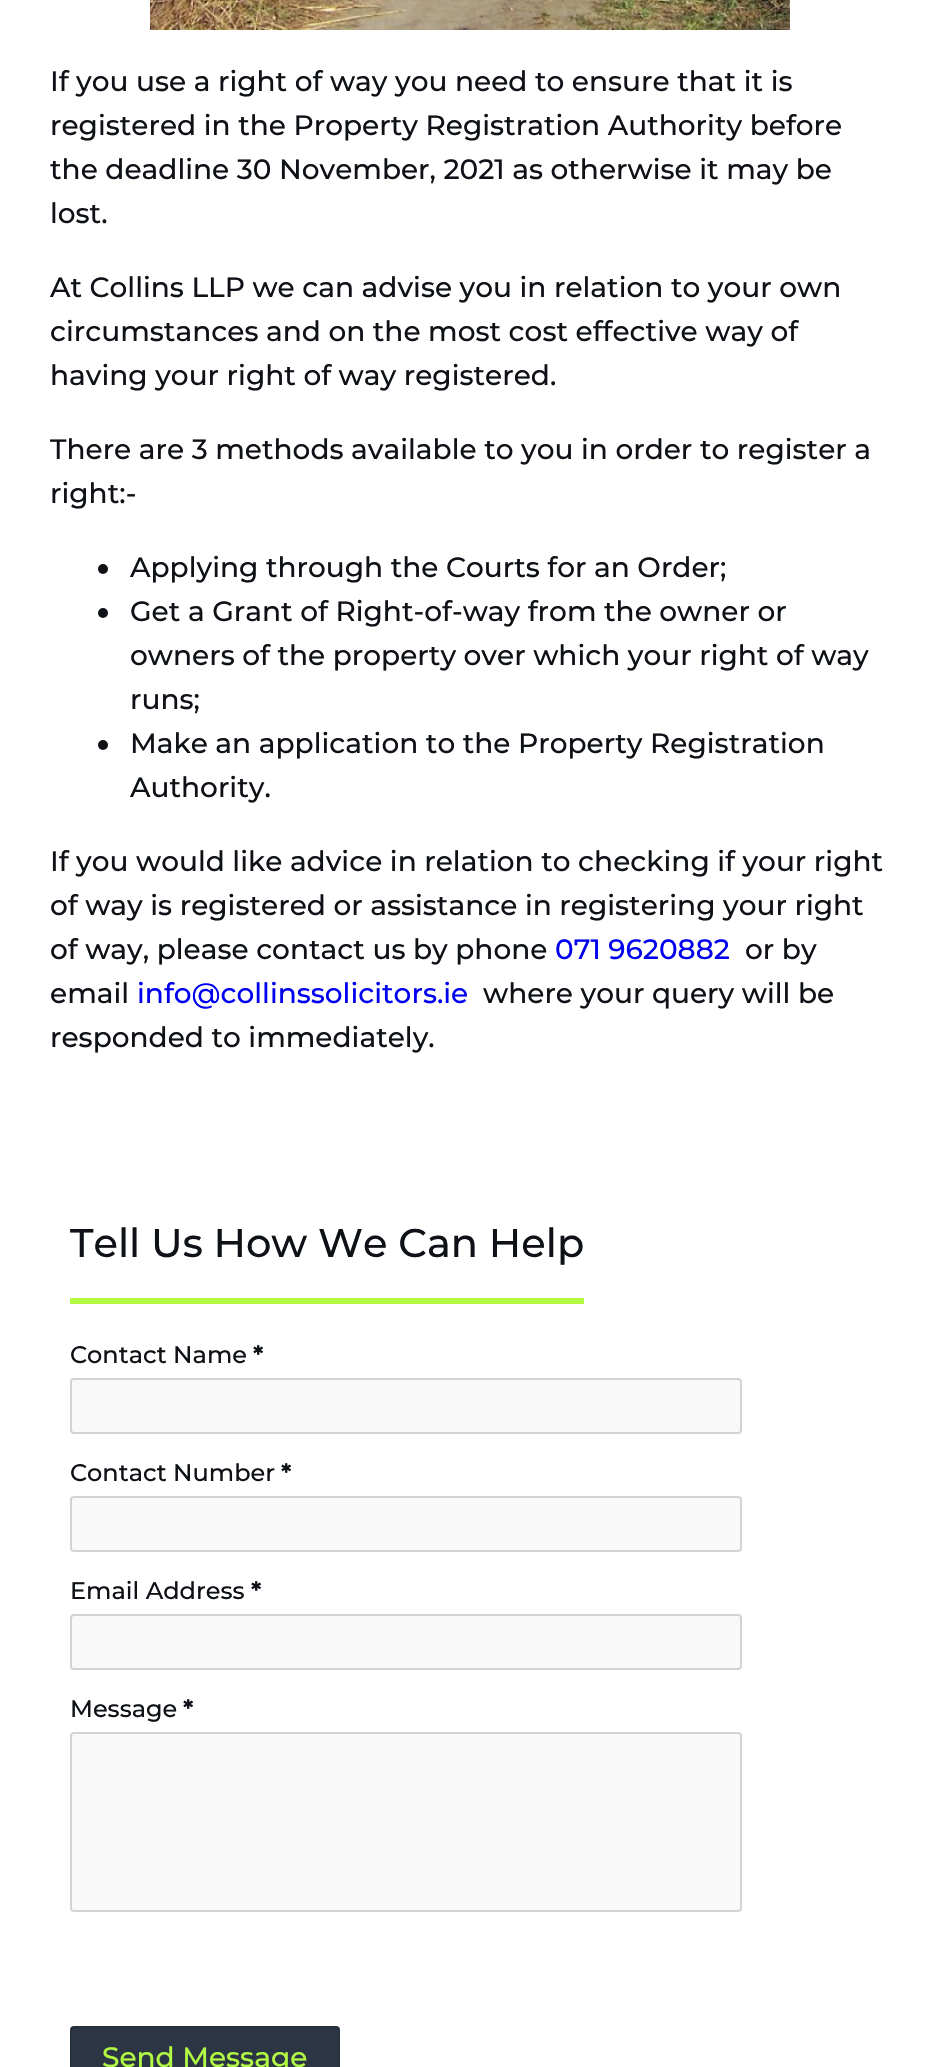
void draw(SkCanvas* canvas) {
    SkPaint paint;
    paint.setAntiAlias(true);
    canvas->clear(0xFFFFFFFF);
    canvas->drawImageRect(SkImages::DeferredFromEncodedData(SkData::MakeFromFileName("img1.png")), SkRect::MakeXYWH(150, 0, 640, 30), SkSamplingOptions());
    SkFont font1(fontMgr->matchFamilyStyle("Montserrat", SkFontStyle(500, SkFontStyle::kNormal_Width, SkFontStyle::kUpright_Slant)), 28);
    font1.setSubpixel(true);
    paint.setColor(0xFF0E1116);
    canvas->drawString("If you use a right of way you need to ensure that it is", 50, 91, font1, paint);
    canvas->drawString("registered in the Property Registration Authority before", 50, 135, font1, paint);
    canvas->drawString("the deadline 30 November, 2021 as otherwise it may be", 50, 179, font1, paint);
    canvas->drawString("lost.", 50, 223, font1, paint);
    canvas->drawString("At Collins LLP we can advise you in relation to your own", 50, 297, font1, paint);
    canvas->drawString("circumstances and on the most cost effective way of", 50, 341, font1, paint);
    canvas->drawString("having your right of way registered.", 50, 385, font1, paint);
    canvas->drawString("There are 3 methods available to you in order to register a", 50, 459, font1, paint);
    canvas->drawString("right:-", 50, 503, font1, paint);
    canvas->drawCircle(103, 569, 5, paint);
    canvas->drawString("Applying through the Courts for an Order;", 130, 577, font1, paint);
    canvas->drawCircle(103, 613, 5, paint);
    canvas->drawString("Get a Grant of Right-of-way from the owner or", 130, 621, font1, paint);
    canvas->drawString("owners of the property over which your right of way", 130, 665, font1, paint);
    canvas->drawString("runs;", 130, 709, font1, paint);
    canvas->drawCircle(103, 745, 5, paint);
    canvas->drawString("Make an application to the Property Registration", 130, 753, font1, paint);
    canvas->drawString("Authority.", 130, 797, font1, paint);
    canvas->drawString("If you would like advice in relation to checking if your right", 50, 871, font1, paint);
    canvas->drawString("of way is registered or assistance in registering your right", 50, 915, font1, paint);
    canvas->drawString("of way, please contact us by phone", 50, 959, font1, paint);
    paint.setColor(0xFF0000EE);
    canvas->drawString("071 9620882", 555, 959, font1, paint);
    paint.setColor(0xFF0E1116);
    canvas->drawString("or by", 745, 959, font1, paint);
    canvas->drawString("email", 50, 1003, font1, paint);
    paint.setColor(0xFF0000EE);
    canvas->drawString("info@collinssolicitors.ie", 137, 1003, font1, paint);
    paint.setColor(0xFF0E1116);
    canvas->drawString("where your query will be", 483, 1003, font1, paint);
    canvas->drawString("responded to immediately.", 50, 1047, font1, paint);
    paint.setColor(0xFFB2F943);
    canvas->drawRect(SkRect::MakeXYWH(70, 1298, 514, 6), paint);
    SkFont font2(fontMgr->matchFamilyStyle("Montserrat", SkFontStyle(500, SkFontStyle::kNormal_Width, SkFontStyle::kUpright_Slant)), 40);
    font2.setSubpixel(true);
    paint.setColor(0xFF0E1116);
    canvas->drawString("Tell Us How We Can Help", 70, 1257, font2, paint);
    SkFont font3(fontMgr->matchFamilyStyle("Montserrat", SkFontStyle(500, SkFontStyle::kNormal_Width, SkFontStyle::kUpright_Slant)), 24);
    font3.setSubpixel(true);
    canvas->drawString("Contact Name", 70, 1363, font3, paint);
    SkFont font4(fontMgr->matchFamilyStyle("Montserrat", SkFontStyle::Bold()), 24);
    font4.setSubpixel(true);
    canvas->drawString("*", 253, 1363, font4, paint);
    paint.setColor(0xFFF9F9F9);
    canvas->drawRoundRect(SkRect::MakeXYWH(71, 1379, 670, 54), 3, 3, paint);
    paint.setStyle(SkPaint::kStroke_Style);
    paint.setStrokeWidth(2);
    paint.setColor(0xFFD3D3D3);
    canvas->drawRoundRect(SkRect::MakeXYWH(71, 1379, 670, 54), 3, 3, paint);
    paint.setStyle(SkPaint::kFill_Style);
    paint.setColor(0xFF0E1116);
    canvas->drawString("Contact Number", 70, 1481, font3, paint);
    canvas->drawString("*", 281, 1481, font4, paint);
    paint.setColor(0xFFF9F9F9);
    canvas->drawRoundRect(SkRect::MakeXYWH(71, 1497, 670, 54), 3, 3, paint);
    paint.setStyle(SkPaint::kStroke_Style);
    paint.setColor(0xFFD3D3D3);
    canvas->drawRoundRect(SkRect::MakeXYWH(71, 1497, 670, 54), 3, 3, paint);
    paint.setStyle(SkPaint::kFill_Style);
    paint.setColor(0xFF0E1116);
    canvas->drawString("Email Address", 70, 1599, font3, paint);
    canvas->drawString("*", 251, 1599, font4, paint);
    paint.setColor(0xFFF9F9F9);
    canvas->drawRoundRect(SkRect::MakeXYWH(71, 1615, 670, 54), 3, 3, paint);
    paint.setStyle(SkPaint::kStroke_Style);
    paint.setColor(0xFFD3D3D3);
    canvas->drawRoundRect(SkRect::MakeXYWH(71, 1615, 670, 54), 3, 3, paint);
    paint.setStyle(SkPaint::kFill_Style);
    paint.setColor(0xFF0E1116);
    canvas->drawString("Message", 70, 1717, font3, paint);
    canvas->drawString("*", 183, 1717, font4, paint);
    paint.setColor(0xFFF9F9F9);
    canvas->drawRoundRect(SkRect::MakeXYWH(71, 1733, 670, 178), 3, 3, paint);
    paint.setStyle(SkPaint::kStroke_Style);
    paint.setColor(0xFFD3D3D3);
    canvas->drawRoundRect(SkRect::MakeXYWH(71, 1733, 670, 178), 3, 3, paint);
    paint.setStyle(SkPaint::kFill_Style);
    paint.setColor(0xFF2B3544);
    canvas->drawRoundRect(SkRect::MakeXYWH(70, 2026, 270, 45), 4, 4, paint);
    paint.setStyle(SkPaint::kStroke_Style);
    paint.setColor(0x1A000000);
    canvas->drawPath(SkPathBuilder().moveTo(72, 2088).lineTo(71, 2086).lineTo(71, 2030).lineTo(72, 2028).lineTo(74, 2027).lineTo(336, 2027).lineTo(338, 2028).lineTo(339, 2030).lineTo(339, 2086).lineTo(338, 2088).detach(), paint);
    paint.setStyle(SkPaint::kFill_Style);
    paint.setColor(0xFFB2F943);
    canvas->drawString("Send Message", 102, 2067, font1, paint);
}
